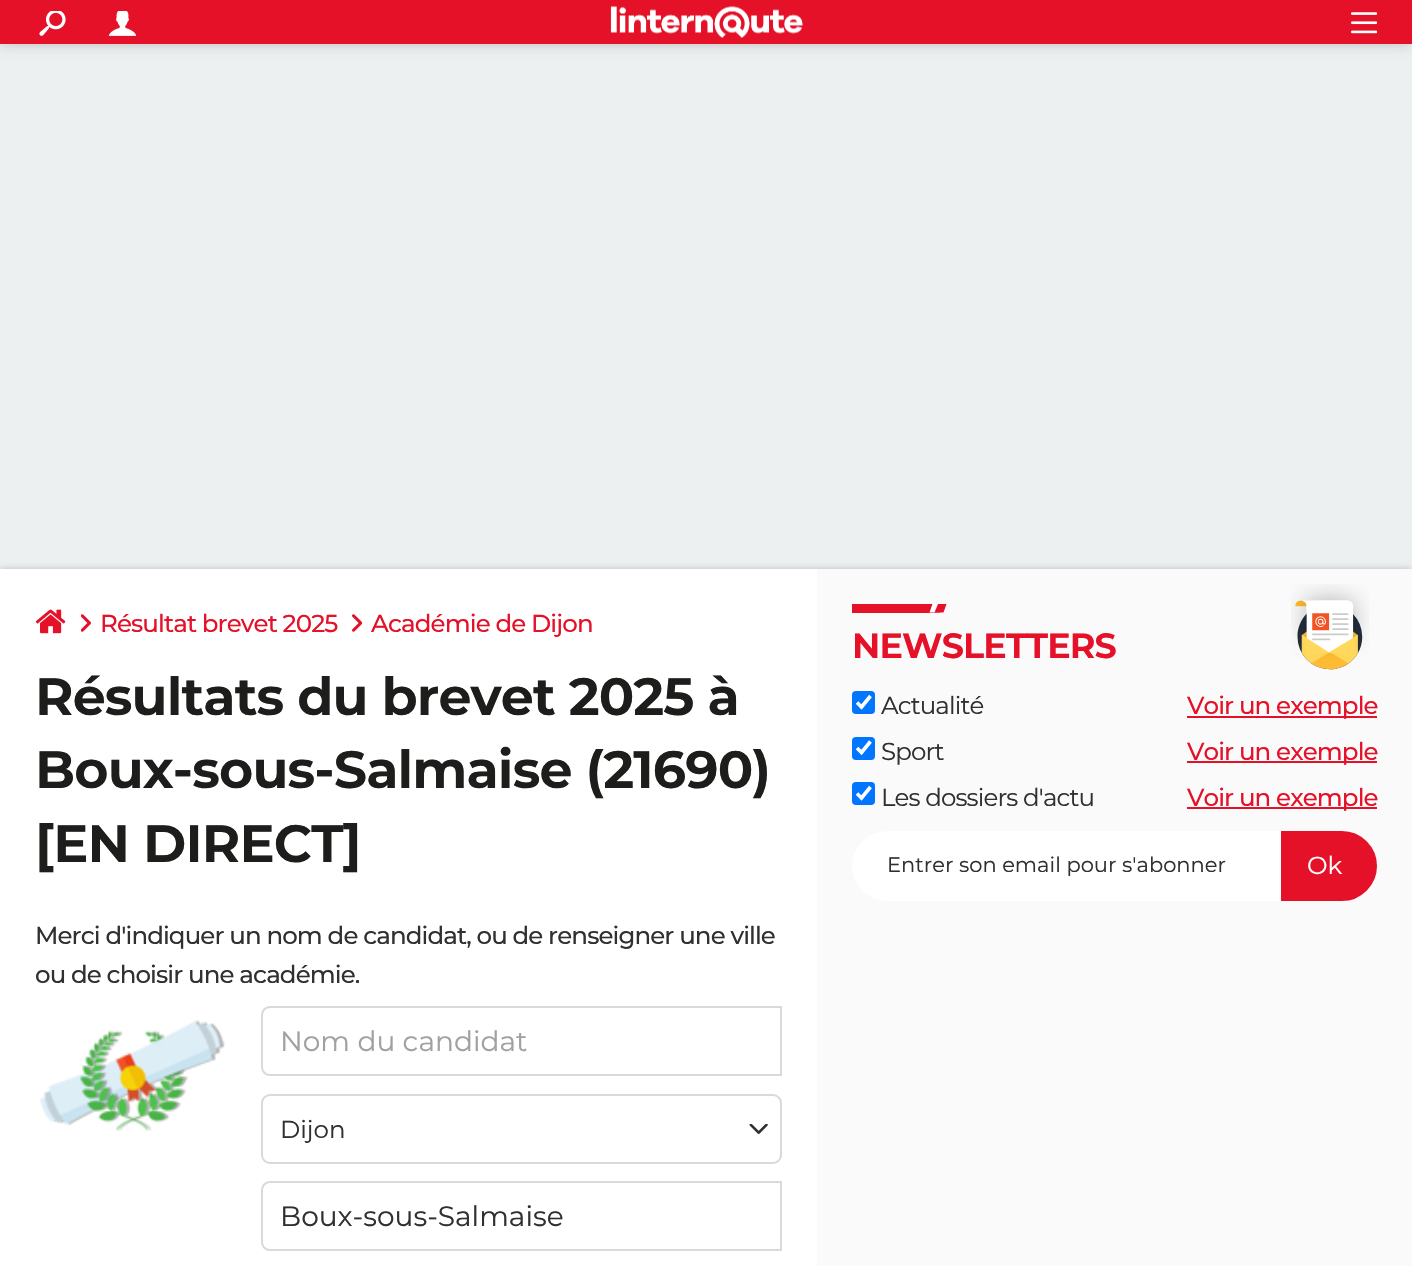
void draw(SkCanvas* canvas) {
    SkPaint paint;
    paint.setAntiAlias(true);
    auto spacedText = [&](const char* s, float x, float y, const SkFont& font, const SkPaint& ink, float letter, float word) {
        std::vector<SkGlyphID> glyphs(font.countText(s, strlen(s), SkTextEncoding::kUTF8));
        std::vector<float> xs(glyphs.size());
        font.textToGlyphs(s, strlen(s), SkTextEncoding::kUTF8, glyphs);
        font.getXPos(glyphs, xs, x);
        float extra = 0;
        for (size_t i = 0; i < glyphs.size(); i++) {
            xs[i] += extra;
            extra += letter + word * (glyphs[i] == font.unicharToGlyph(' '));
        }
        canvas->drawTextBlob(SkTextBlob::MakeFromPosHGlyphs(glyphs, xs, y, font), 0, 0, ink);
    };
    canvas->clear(0xFFEDF0F0);
    paint.setColor(0x33000000);
    paint.setMaskFilter(SkMaskFilter::MakeBlur(kNormal_SkBlurStyle, 7));
    canvas->drawRect(SkRect::MakeXYWH(0, 0, 1412, 44), paint);
    paint.setMaskFilter(nullptr);
    paint.setColor(0xFFE41129);
    canvas->drawRect(SkRect::MakeXYWH(0, 0, 1412, 44), paint);
    canvas->drawImageRect(SkImages::DeferredFromEncodedData(SkData::MakeFromFileName("img1.png")), SkRect::MakeXYWH(39, 11, 27, 25), SkSamplingOptions());
    canvas->drawImageRect(SkImages::DeferredFromEncodedData(SkData::MakeFromFileName("img2.png")), SkRect::MakeXYWH(108, 11, 29, 25), SkSamplingOptions());
    canvas->drawImageRect(SkImages::DeferredFromEncodedData(SkData::MakeFromFileName("img3.png")), SkRect::MakeXYWH(610, 6, 193, 33), SkSamplingOptions());
    canvas->drawImageRect(SkImages::DeferredFromEncodedData(SkData::MakeFromFileName("img4.png")), SkRect::MakeXYWH(1351, 12, 26, 22), SkSamplingOptions());
    paint.setColor(0x33000000);
    paint.setMaskFilter(SkMaskFilter::MakeBlur(kNormal_SkBlurStyle, 3.5f));
    canvas->drawRect(SkRect::MakeXYWH(0, 569, 1412, 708), paint);
    paint.setMaskFilter(nullptr);
    paint.setColor(0xFFFAFAFA);
    canvas->drawRect(SkRect::MakeXYWH(817, 569, 595, 697), paint);
    paint.setColor(0xFFFFFFFF);
    canvas->drawRect(SkRect::MakeXYWH(0, 569, 817, 697), paint);
    canvas->drawImageRect(SkImages::DeferredFromEncodedData(SkData::MakeFromFileName("img5.png")), SkRect::MakeXYWH(35, 609, 31, 25), SkSamplingOptions());
    canvas->drawImageRect(SkImages::DeferredFromEncodedData(SkData::MakeFromFileName("img6.png")), SkRect::MakeXYWH(81, 614, 10, 18), SkSamplingOptions());
    SkFont font1(fontMgr->matchFamilyStyle("Montserrat", SkFontStyle(500, SkFontStyle::kNormal_Width, SkFontStyle::kUpright_Slant)), 24.5f);
    font1.setSubpixel(true);
    paint.setColor(0xFFE41129);
    spacedText("Résultat brevet 2025", 100, 632, font1, paint, -0.88f, 0);
    canvas->drawImageRect(SkImages::DeferredFromEncodedData(SkData::MakeFromFileName("img7.png")), SkRect::MakeXYWH(352, 614, 10, 18), SkSamplingOptions());
    spacedText("Académie de Dijon", 371, 632, font1, paint, -0.88f, 0);
    SkFont font2(fontMgr->matchFamilyStyle("Montserrat", SkFontStyle::Bold()), 52.5f);
    font2.setSubpixel(true);
    paint.setColor(0xFF1D1D1B);
    spacedText("Résultats du brevet 2025 à", 35, 715, font2, paint, -0.88f, 0);
    spacedText("Boux-sous-Salmaise (21690)", 35, 788, font2, paint, -0.88f, 0);
    spacedText("[EN DIRECT]", 35, 862, font2, paint, -0.88f, 0);
    paint.setColor(0xFF303030);
    spacedText("Merci d'indiquer un nom de candidat, ou de renseigner une ville", 35, 944, font1, paint, -0.88f, 0);
    spacedText("ou de choisir une académie.", 35, 983, font1, paint, -0.88f, 0);
    canvas->drawImageRect(SkImages::DeferredFromEncodedData(SkData::MakeFromFileName("img8.png")), SkRect::MakeXYWH(40, 1020, 185, 111), SkSamplingOptions());
    paint.setStyle(SkPaint::kStroke_Style);
    paint.setStrokeWidth(2);
    paint.setColor(0xFFD9D9D9);
    canvas->drawPath(SkPathBuilder().moveTo(270, 1007).lineTo(781, 1007).lineTo(781, 1075).lineTo(270, 1075).cubicTo(265.5f, 1075, 262, 1071.5f, 262, 1067).lineTo(262, 1015).cubicTo(262, 1010.5f, 265.5f, 1007, 270, 1007).close().detach(), paint);
    SkFont font3(fontMgr->matchFamilyStyle("Montserrat", SkFontStyle::Normal()), 28);
    font3.setSubpixel(true);
    paint.setStyle(SkPaint::kFill_Style);
    paint.setColor(0xFFA1A1A1);
    canvas->drawString("Nom du candidat", 280, 1051, font3, paint);
    canvas->drawImageRect(SkImages::DeferredFromEncodedData(SkData::MakeFromFileName("img9.png")), SkRect::MakeXYWH(749, 1124, 19, 10), SkSamplingOptions());
    paint.setStyle(SkPaint::kStroke_Style);
    paint.setColor(0xFFD9D9D9);
    canvas->drawRoundRect(SkRect::MakeXYWH(262, 1095, 519, 68), 8, 8, paint);
    SkFont font4(fontMgr->matchFamilyStyle("Montserrat", SkFontStyle::Normal()), 24.5f);
    font4.setSubpixel(true);
    paint.setStyle(SkPaint::kFill_Style);
    paint.setColor(0xFF303030);
    canvas->drawString("Dijon", 280, 1138, font4, paint);
    paint.setStyle(SkPaint::kStroke_Style);
    paint.setColor(0xFFD9D9D9);
    canvas->drawPath(SkPathBuilder().moveTo(270, 1182).lineTo(781, 1182).lineTo(781, 1250).lineTo(270, 1250).cubicTo(265.5f, 1250, 262, 1246.5f, 262, 1242).lineTo(262, 1190).cubicTo(262, 1185.5f, 265.5f, 1182, 270, 1182).close().detach(), paint);
    paint.setStyle(SkPaint::kFill_Style);
    paint.setColor(0xFF303030);
    canvas->drawString("Boux-sous-Salmaise", 280, 1226, font3, paint);
    paint.setColor(0xFFE41129);
    canvas->drawRect(SkRect::MakeXYWH(852, 604, 88, 9), paint);
    paint.setColor(0xFFFFFFFF);
    canvas->drawPath(SkPathBuilder().moveTo(932.5f, 604).lineTo(946.5f, 604).lineTo(943.5f, 612.5f).lineTo(929.5f, 612.5f).close().detach(), paint);
    paint.setColor(0xFFE41129);
    canvas->drawPath(SkPathBuilder().moveTo(938, 604).lineTo(946.5f, 604).lineTo(943.5f, 612.5f).lineTo(934.5f, 612.5f).close().detach(), paint);
    SkFont font5(fontMgr->matchFamilyStyle("Montserrat", SkFontStyle::Bold()), 35);
    font5.setSubpixel(true);
    spacedText("NEWSLETTERS", 852, 658, font5, paint, -0.88f, 0);
    canvas->drawImageRect(SkImages::DeferredFromEncodedData(SkData::MakeFromFileName("img10.png")), SkRect::MakeXYWH(1291, 584, 78, 86), SkSamplingOptions());
    paint.setColor(0xFF0075FF);
    canvas->drawRoundRect(SkRect::MakeXYWH(852, 691, 23, 23), 4, 4, paint);
    paint.setStyle(SkPaint::kStroke_Style);
    paint.setStrokeWidth(3.6f);
    paint.setColor(0xFFFFFFFF);
    canvas->drawPath(SkPathBuilder().moveTo(857, 702.5f).lineTo(861.5f, 707).lineTo(870.5f, 696).detach(), paint);
    paint.setStyle(SkPaint::kFill_Style);
    paint.setColor(0xFF303030);
    spacedText("Actualité", 881, 714, font4, paint, -0.88f, 0);
    paint.setColor(0xFFE41129);
    canvas->drawRect(SkRect::MakeXYWH(1187, 716, 190, 2), paint);
    spacedText("Voir un exemple", 1187, 714, font1, paint, -0.88f, 0);
    paint.setColor(0xFF0075FF);
    canvas->drawRoundRect(SkRect::MakeXYWH(852, 737, 23, 23), 4, 4, paint);
    paint.setStyle(SkPaint::kStroke_Style);
    paint.setColor(0xFFFFFFFF);
    canvas->drawPath(SkPathBuilder().moveTo(857, 748).lineTo(861.5f, 752.5f).lineTo(870.5f, 741.5f).detach(), paint);
    paint.setStyle(SkPaint::kFill_Style);
    paint.setColor(0xFF303030);
    spacedText("Sport", 881, 760, font4, paint, -0.88f, 0);
    paint.setColor(0xFFE41129);
    canvas->drawRect(SkRect::MakeXYWH(1187, 761, 190, 2), paint);
    spacedText("Voir un exemple", 1187, 760, font1, paint, -0.88f, 0);
    paint.setColor(0xFF0075FF);
    canvas->drawRoundRect(SkRect::MakeXYWH(852, 782, 23, 23), 4, 4, paint);
    paint.setStyle(SkPaint::kStroke_Style);
    paint.setColor(0xFFFFFFFF);
    canvas->drawPath(SkPathBuilder().moveTo(857, 793.5f).lineTo(861.5f, 798).lineTo(870.5f, 787).detach(), paint);
    paint.setStyle(SkPaint::kFill_Style);
    paint.setColor(0xFF303030);
    spacedText("Les dossiers d'actu", 881, 806, font4, paint, -0.88f, 0);
    paint.setColor(0xFFE41129);
    canvas->drawRect(SkRect::MakeXYWH(1187, 807, 190, 2), paint);
    spacedText("Voir un exemple", 1187, 806, font1, paint, -0.88f, 0);
    paint.setColor(0xFFFFFFFF);
    canvas->drawRoundRect(SkRect::MakeXYWH(852, 831, 525, 70), 35, 35, paint);
    SkFont font6(fontMgr->matchFamilyStyle("Montserrat", SkFontStyle::Normal()), 21);
    font6.setSubpixel(true);
    paint.setColor(0xFF303030);
    canvas->drawString("Entrer son email pour s'abonner", 887, 872, font6, paint);
    paint.setColor(0xFFE41129);
    canvas->drawPath(SkPathBuilder().moveTo(1283, 833).lineTo(1342, 833).cubicTo(1360, 833, 1375, 848, 1375, 866).cubicTo(1375, 884, 1360, 899, 1342, 899).lineTo(1283, 899).close().detach(), paint);
    paint.setStyle(SkPaint::kStroke_Style);
    paint.setStrokeWidth(4);
    canvas->drawPath(SkPathBuilder().moveTo(1283, 833).lineTo(1342, 833).cubicTo(1360, 833, 1375, 848, 1375, 866).cubicTo(1375, 884, 1360, 899, 1342, 899).lineTo(1283, 899).close().detach(), paint);
    paint.setStyle(SkPaint::kFill_Style);
    paint.setColor(0xFFFFFFFF);
    canvas->drawString("Ok", 1307, 874, font4, paint);
}
